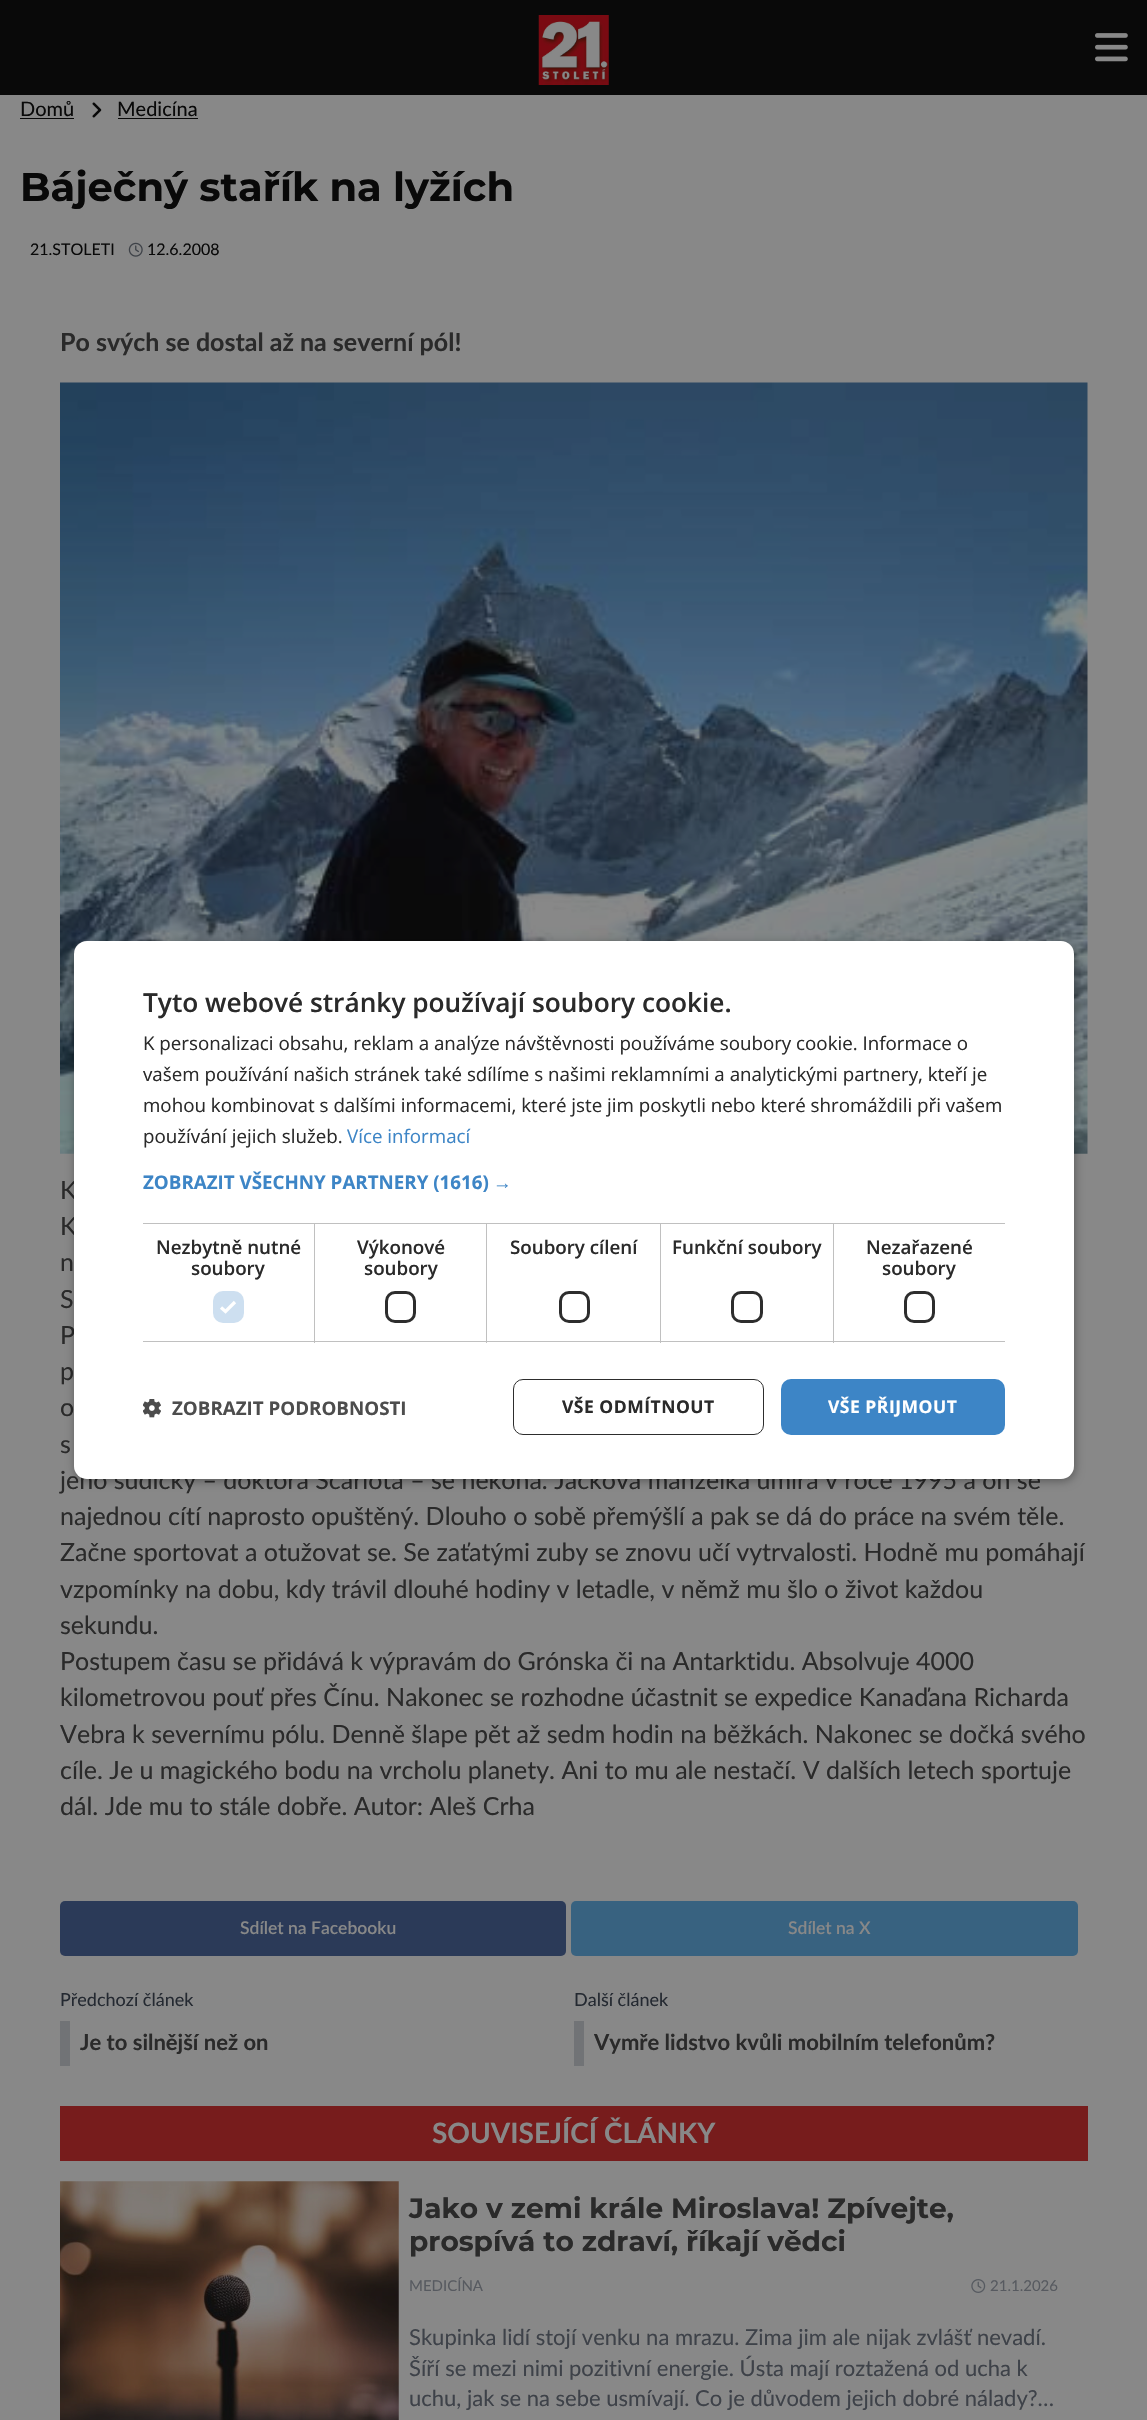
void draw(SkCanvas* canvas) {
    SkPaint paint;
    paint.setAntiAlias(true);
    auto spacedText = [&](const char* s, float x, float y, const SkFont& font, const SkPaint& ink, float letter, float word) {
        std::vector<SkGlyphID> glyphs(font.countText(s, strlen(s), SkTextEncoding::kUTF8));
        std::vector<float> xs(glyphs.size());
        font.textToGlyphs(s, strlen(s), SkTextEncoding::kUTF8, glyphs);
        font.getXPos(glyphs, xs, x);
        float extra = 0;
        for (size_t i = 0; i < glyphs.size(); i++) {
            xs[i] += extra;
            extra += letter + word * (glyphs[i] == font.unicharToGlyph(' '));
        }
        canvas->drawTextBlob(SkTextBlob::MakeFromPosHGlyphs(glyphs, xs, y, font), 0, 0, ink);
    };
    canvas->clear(0xFF888888);
    paint.setColor(0xFF090909);
    canvas->drawRect(SkRect::MakeXYWH(0, 0, 1147, 95), paint);
    canvas->drawImageRect(SkImages::DeferredFromEncodedData(SkData::MakeFromFileName("img1.png")), SkRect::MakeXYWH(538, 15, 71, 70), SkSamplingOptions());
    canvas->drawImageRect(SkImages::DeferredFromEncodedData(SkData::MakeFromFileName("img2.png")), SkRect::MakeXYWH(1095, 33, 33, 29), SkSamplingOptions());
    SkFont font1(fontMgr->matchFamilyStyle("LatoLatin", SkFontStyle::Normal()), 20);
    font1.setSubpixel(true);
    canvas->drawString("Domů", 20, 116, font1, paint);
    canvas->drawRect(SkRect::MakeXYWH(20, 118, 54, 1), paint);
    canvas->drawImageRect(SkImages::DeferredFromEncodedData(SkData::MakeFromFileName("img3.png")), SkRect::MakeXYWH(92, 102, 10, 16), SkSamplingOptions());
    canvas->drawString("Medicína", 117, 116, font1, paint);
    canvas->drawRect(SkRect::MakeXYWH(118, 118, 80, 1), paint);
    SkFont font2(fontMgr->matchFamilyStyle("Montserrat", SkFontStyle::Bold()), 40);
    font2.setSubpixel(true);
    canvas->drawString("Báječný stařík na lyžích", 20, 201, font2, paint);
    SkFont font3(fontMgr->matchFamilyStyle("LatoLatin", SkFontStyle::Normal()), 16);
    font3.setSubpixel(true);
    canvas->drawString("21.STOLETI", 30, 255, font3, paint);
    canvas->drawImageRect(SkImages::DeferredFromEncodedData(SkData::MakeFromFileName("img4.png")), SkRect::MakeXYWH(128, 242, 15, 15), SkSamplingOptions());
    canvas->drawString("12.6.2008", 147, 255, font3, paint);
    SkFont font4(fontMgr->matchFamilyStyle("LatoLatin", SkFontStyle::Bold()), 25);
    font4.setSubpixel(true);
    paint.setColor(0xFF2A2A2A);
    canvas->drawString("Po svých se dostal až na severní pól!", 60, 351, font4, paint);
    canvas->drawImageRect(SkImages::DeferredFromEncodedData(SkData::MakeFromFileName("img5.png")), SkRect::MakeXYWH(60, 382, 1028, 772), SkSamplingOptions());
    SkFont font5(fontMgr->matchFamilyStyle("LatoLatin", SkFontStyle::Normal()), 25);
    font5.setSubpixel(true);
    canvas->drawString("K", 60, 1199, font5, paint);
    canvas->drawString("K", 60, 1235, font5, paint);
    canvas->drawString("n", 60, 1271, font5, paint);
    canvas->drawString("S", 60, 1308, font5, paint);
    canvas->drawString("P", 60, 1344, font5, paint);
    canvas->drawString("p", 60, 1380, font5, paint);
    canvas->drawString("o", 60, 1416, font5, paint);
    canvas->drawString("s", 60, 1453, font5, paint);
    canvas->drawString("jeho sudičky – doktora Scarlota – se nekoná. Jackova manželka umírá v roce 1995 a on se", 60, 1489, font5, paint);
    canvas->drawString("najednou cítí naprosto opuštěný. Dlouho o sobě přemýšlí a pak se dá do práce na svém těle.", 60, 1525, font5, paint);
    canvas->drawString("Začne sportovat a otužovat se. Se zaťatými zuby se znovu učí vytrvalosti. Hodně mu pomáhají", 60, 1561, font5, paint);
    canvas->drawString("vzpomínky na dobu, kdy trávil dlouhé hodiny v letadle, v němž mu šlo o život každou", 60, 1598, font5, paint);
    canvas->drawString("sekundu.", 60, 1634, font5, paint);
    canvas->drawString("Postupem času se přidává k výpravám do Grónska či na Antarktidu. Absolvuje 4000", 60, 1670, font5, paint);
    canvas->drawString("kilometrovou pouť přes Čínu. Nakonec se rozhodne účastnit se expedice Kanaďana Richarda", 60, 1706, font5, paint);
    canvas->drawString("Vebra k severnímu pólu. Denně šlape pět až sedm hodin na běžkách. Nakonec se dočká svého", 60, 1743, font5, paint);
    canvas->drawString("cíle. Je u magického bodu na vrcholu planety. Ani to mu ale nestačí. V dalších letech sportuje", 60, 1779, font5, paint);
    canvas->drawString("dál. Jde mu to stále dobře. Autor: Aleš Crha", 60, 1815, font5, paint);
    paint.setColor(0xFF2B3A58);
    canvas->drawRoundRect(SkRect::MakeXYWH(60, 1901, 506, 55), 5, 5, paint);
    SkFont font6(fontMgr->matchFamilyStyle("LatoLatin", SkFontStyle(600, SkFontStyle::kNormal_Width, SkFontStyle::kUpright_Slant)), 17.5f);
    font6.setSubpixel(true);
    paint.setColor(0xFF888888);
    canvas->drawString("Sdílet na Facebooku", 240, 1934, font6, paint);
    paint.setColor(0xFF386280);
    canvas->drawRoundRect(SkRect::MakeXYWH(571, 1901, 507, 55), 5, 5, paint);
    paint.setColor(0xFF888888);
    canvas->drawString("Sdílet na X", 788, 1934, font6, paint);
    SkFont font7(fontMgr->matchFamilyStyle("LatoLatin", SkFontStyle::Normal()), 18);
    font7.setSubpixel(true);
    paint.setColor(0xFF242931);
    canvas->drawString("Předchozí článek", 60, 2006, font7, paint);
    paint.setColor(0xFF717376);
    canvas->drawRect(SkRect::MakeXYWH(60, 2021, 10, 45), paint);
    SkFont font8(fontMgr->matchFamilyStyle("LatoLatin", SkFontStyle::Bold()), 22);
    font8.setSubpixel(true);
    paint.setColor(0xFF2A2A2A);
    canvas->drawString("Je to silnější než on", 80, 2050, font8, paint);
    paint.setColor(0xFF242931);
    canvas->drawString("Další článek", 574, 2006, font7, paint);
    paint.setColor(0xFF717376);
    canvas->drawRect(SkRect::MakeXYWH(574, 2021, 10, 45), paint);
    paint.setColor(0xFF2A2A2A);
    canvas->drawString("Vymře lidstvo kvůli mobilním telefonům?", 594, 2050, font8, paint);
    paint.setColor(0xFF771C1C);
    canvas->drawRect(SkRect::MakeXYWH(60, 2106, 1028, 55), paint);
    SkFont font9(fontMgr->matchFamilyStyle("LatoLatin", SkFontStyle::Bold()), 28);
    font9.setSubpixel(true);
    paint.setColor(0xFF888888);
    canvas->drawString("SOUVISEJÍCÍ ČLÁNKY", 432, 2143, font9, paint);
    canvas->drawImageRect(SkImages::DeferredFromEncodedData(SkData::MakeFromFileName("img6.png")), SkRect::MakeXYWH(60, 2181, 339, 239), SkSamplingOptions());
    SkFont font10(fontMgr->matchFamilyStyle("Montserrat", SkFontStyle::Bold()), 28);
    font10.setSubpixel(true);
    paint.setColor(0xFF2A2A2A);
    canvas->drawString("Jako v zemi krále Miroslava! Zpívejte,", 409, 2218, font10, paint);
    canvas->drawString("prospívá to zdraví, říkají vědci", 409, 2251, font10, paint);
    SkFont font11(fontMgr->matchFamilyStyle("LatoLatin", SkFontStyle::Normal()), 15);
    font11.setSubpixel(true);
    paint.setColor(0xFF575A60);
    canvas->drawString("MEDICÍNA", 409, 2291, font11, paint);
    canvas->drawImageRect(SkImages::DeferredFromEncodedData(SkData::MakeFromFileName("img7.png")), SkRect::MakeXYWH(971, 2279, 15, 14), SkSamplingOptions());
    canvas->drawString("21.1.2026", 990, 2291, font11, paint);
    SkFont font12(fontMgr->matchFamilyStyle("LatoLatin", SkFontStyle::Normal()), 22);
    font12.setSubpixel(true);
    paint.setColor(0xFF3E4249);
    canvas->drawString("Skupinka lidí stojí venku na mrazu. Zima jim ale nijak zvlášť nevadí.", 409, 2345, font12, paint);
    canvas->drawString("Šíří se mezi nimi pozitivní energie. Ústa mají roztažená od ucha k", 409, 2376, font12, paint);
    canvas->drawString("uchu, jak se na sebe usmívají. Co je důvodem jejich dobré nálady?…", 409, 2406, font12, paint);
    paint.setColor(0x59000000);
    paint.setMaskFilter(SkMaskFilter::MakeBlur(kNormal_SkBlurStyle, 5));
    canvas->drawRoundRect(SkRect::MakeXYWH(75, 944, 1000, 537), 13, 13, paint);
    paint.setMaskFilter(nullptr);
    paint.setColor(0xFFFFFFFF);
    canvas->drawRoundRect(SkRect::MakeXYWH(74, 941, 1000, 538), 13, 13, paint);
    SkFont font13(fontMgr->matchFamilyStyle("Open Sans", SkFontStyle(600, SkFontStyle::kNormal_Width, SkFontStyle::kUpright_Slant)), 26.25f);
    font13.setSubpixel(true);
    paint.setColor(0xFF2A2A2A);
    canvas->drawString("Tyto webové stránky používají soubory cookie.", 143, 1012, font13, paint);
    SkFont font14(fontMgr->matchFamilyStyle("Open Sans", SkFontStyle::Normal()), 18.75f);
    font14.setSubpixel(true);
    canvas->drawString("K personalizaci obsahu, reklam a analýze návštěvnosti používáme soubory cookie. Informace o", 143, 1050, font14, paint);
    canvas->drawString("vašem používání našich stránek také sdílíme s našimi reklamními a analytickými partnery, kteří je", 143, 1081, font14, paint);
    canvas->drawString("mohou kombinovat s dalšími informacemi, které jste jim poskytli nebo které shromáždili při vašem", 143, 1112, font14, paint);
    canvas->drawString("používání jejich služeb.", 143, 1143, font14, paint);
    paint.setColor(0xFF3D85C6);
    canvas->drawString("Více informací", 347, 1143, font14, paint);
    SkFont font15(fontMgr->matchFamilyStyle("Open Sans", SkFontStyle::Bold()), 18.75f);
    font15.setSubpixel(true);
    canvas->drawString("ZOBRAZIT VŠECHNY PARTNERY (1616)", 143, 1189, font15, paint);
    SkFont font16(fontMgr->matchFamilyStyle("Liberation Sans", SkFontStyle::Bold()), 18.75f);
    font16.setSubpixel(true);
    canvas->drawString("→", 493, 1189, font16, paint);
    paint.setColor(0xFFC0C0C0);
    canvas->drawRect(SkRect::MakeXYWH(143, 1223, 862, 1), paint);
    canvas->drawRect(SkRect::MakeXYWH(314, 1223, 1, 120), paint);
    canvas->drawRect(SkRect::MakeXYWH(143, 1341, 172, 1), paint);
    SkFont font17(fontMgr->matchFamilyStyle("Open Sans", SkFontStyle(600, SkFontStyle::kNormal_Width, SkFontStyle::kUpright_Slant)), 18.75f);
    font17.setSubpixel(true);
    paint.setColor(0xFF2A2A2A);
    canvas->drawString("Nezbytně nutné", 156, 1254, font17, paint);
    canvas->drawString("soubory", 191, 1275, font17, paint);
    paint.setColor(0xFFCDDFF0);
    canvas->drawRoundRect(SkRect::MakeXYWH(213, 1291, 31, 32), 10, 10, paint);
    paint.setStyle(SkPaint::kStroke_Style);
    paint.setStrokeWidth(3.3f);
    paint.setColor(0xFFFFFFFF);
    canvas->drawPath(SkPathBuilder().moveTo(221, 1307.5f).lineTo(225.5f, 1311.5f).lineTo(235, 1302).detach(), paint);
    paint.setStyle(SkPaint::kFill_Style);
    paint.setColor(0xFFC0C0C0);
    canvas->drawRect(SkRect::MakeXYWH(486, 1223, 1, 120), paint);
    canvas->drawRect(SkRect::MakeXYWH(315, 1341, 173, 1), paint);
    paint.setColor(0xFF2A2A2A);
    canvas->drawString("Výkonové", 357, 1254, font17, paint);
    canvas->drawString("soubory", 364, 1275, font17, paint);
    paint.setStyle(SkPaint::kStroke_Style);
    paint.setStrokeWidth(3);
    paint.setColor(0xFF2D2D2D);
    canvas->drawRoundRect(SkRect::MakeXYWH(386.5f, 1292.5f, 28, 29), 8.5f, 8.5f, paint);
    paint.setStyle(SkPaint::kFill_Style);
    paint.setColor(0xFFC0C0C0);
    canvas->drawRect(SkRect::MakeXYWH(660, 1223, 1, 120), paint);
    canvas->drawRect(SkRect::MakeXYWH(488, 1341, 173, 1), paint);
    paint.setColor(0xFF2A2A2A);
    canvas->drawString("Soubory cílení", 510, 1254, font17, paint);
    paint.setStyle(SkPaint::kStroke_Style);
    paint.setColor(0xFF2D2D2D);
    canvas->drawRoundRect(SkRect::MakeXYWH(560.5f, 1292.5f, 28, 29), 8.5f, 8.5f, paint);
    paint.setStyle(SkPaint::kFill_Style);
    paint.setColor(0xFFC0C0C0);
    canvas->drawRect(SkRect::MakeXYWH(833, 1223, 1, 120), paint);
    canvas->drawRect(SkRect::MakeXYWH(661, 1341, 344, 1), paint);
    paint.setColor(0xFF2A2A2A);
    canvas->drawString("Funkční soubory", 672, 1254, font17, paint);
    paint.setStyle(SkPaint::kStroke_Style);
    paint.setColor(0xFF2D2D2D);
    canvas->drawRoundRect(SkRect::MakeXYWH(732.5f, 1292.5f, 29, 29), 8.5f, 8.5f, paint);
    paint.setStyle(SkPaint::kFill_Style);
    paint.setColor(0xFF2A2A2A);
    canvas->drawString("Nezařazené", 866, 1254, font17, paint);
    canvas->drawString("soubory", 882, 1275, font17, paint);
    paint.setStyle(SkPaint::kStroke_Style);
    paint.setColor(0xFF2D2D2D);
    canvas->drawRoundRect(SkRect::MakeXYWH(905.5f, 1292.5f, 28, 29), 8.5f, 8.5f, paint);
    canvas->drawImageRect(SkImages::DeferredFromEncodedData(SkData::MakeFromFileName("img8.png")), SkRect::MakeXYWH(143, 1399, 18, 19), SkSamplingOptions());
    paint.setStyle(SkPaint::kFill_Style);
    paint.setColor(0xFF4D4D4D);
    canvas->drawString("ZOBRAZIT PODROBNOSTI", 172, 1415, font15, paint);
    paint.setStyle(SkPaint::kStroke_Style);
    paint.setStrokeWidth(1);
    paint.setColor(0xFF2D2D2D);
    canvas->drawRoundRect(SkRect::MakeXYWH(513.5f, 1379.5f, 250, 55), 9.5f, 9.5f, paint);
    SkFont font18(fontMgr->matchFamilyStyle("Open Sans", SkFontStyle::Bold()), 17.5f);
    font18.setSubpixel(true);
    paint.setStyle(SkPaint::kFill_Style);
    paint.setColor(0xFF2A2A2A);
    spacedText("VŠE ODMÍTNOUT", 562, 1413, font18, paint, 0.5f, 0);
    paint.setColor(0xFF3D85C6);
    canvas->drawRoundRect(SkRect::MakeXYWH(781, 1379, 224, 56), 10, 10, paint);
    paint.setColor(0xFFFFFFFF);
    spacedText("VŠE PŘIJMOUT", 828, 1413, font18, paint, 0.5f, 0);
}
